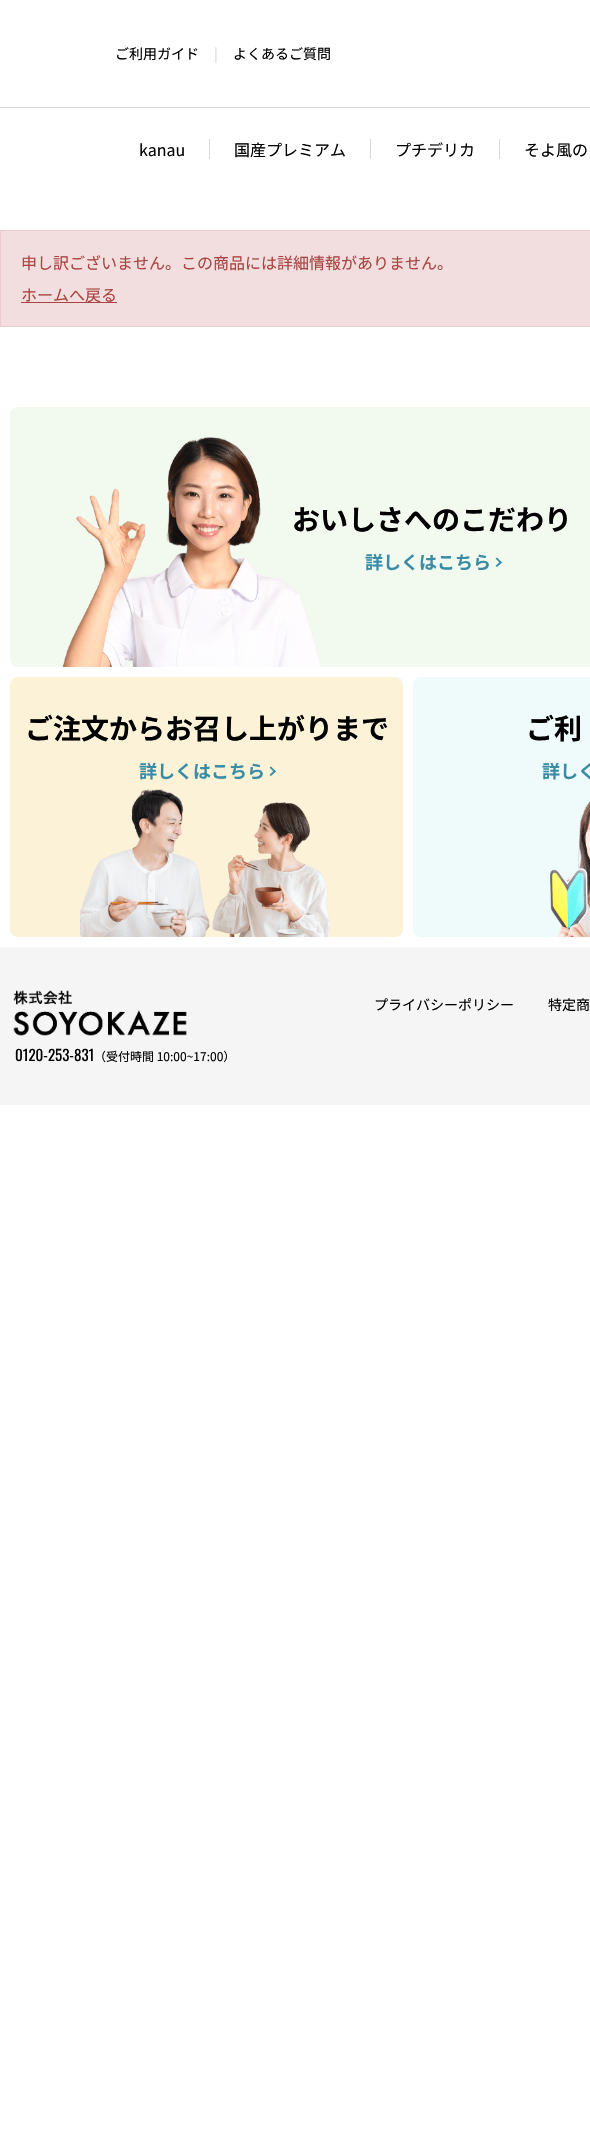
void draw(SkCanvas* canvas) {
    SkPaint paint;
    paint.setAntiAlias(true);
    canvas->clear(0xFFFFFFFF);
    SkFont font1(fontMgr->matchFamilyStyle("Noto Sans JP", SkFontStyle::Normal()), 14);
    font1.setSubpixel(true);
    paint.setColor(0xFF000000);
    canvas->drawString("ご利用ガイド", 115, 59, font1, paint);
    paint.setColor(0xFFD9D9D9);
    canvas->drawString("|", 214, 59, font1, paint);
    paint.setColor(0xFF000000);
    canvas->drawString("よくあるご質問", 233, 59, font1, paint);
    paint.setColor(0xFFD9D9D9);
    canvas->drawRect(SkRect::MakeXYWH(0, 107, 590, 1), paint);
    SkFont font2(fontMgr->matchFamilyStyle("Noto Sans JP", SkFontStyle::Normal()), 16);
    font2.setSubpixel(true);
    paint.setColor(0xFF000000);
    canvas->drawString("kanau", 139, 156, font2, paint);
    paint.setColor(0xFFD9D9D9);
    canvas->drawRect(SkRect::MakeXYWH(209, 139, 1, 20), paint);
    paint.setColor(0xFF000000);
    canvas->drawString("国産プレミアム", 234, 156, font2, paint);
    paint.setColor(0xFFD9D9D9);
    canvas->drawRect(SkRect::MakeXYWH(370, 139, 1, 20), paint);
    paint.setColor(0xFF000000);
    canvas->drawString("プチデリカ", 395, 156, font2, paint);
    paint.setColor(0xFFD9D9D9);
    canvas->drawRect(SkRect::MakeXYWH(499, 139, 1, 20), paint);
    paint.setColor(0xFF000000);
    canvas->drawString("そよ風の", 524, 156, font2, paint);
    paint.setColor(0xFFF2DEDE);
    canvas->drawRect(SkRect::MakeXYWH(0.5f, 230.5f, 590, 96), paint);
    paint.setStyle(SkPaint::kStroke_Style);
    paint.setStrokeWidth(1);
    paint.setColor(0xFFEBCCD1);
    canvas->drawRect(SkRect::MakeXYWH(0.5f, 230.5f, 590, 96), paint);
    paint.setStyle(SkPaint::kFill_Style);
    paint.setColor(0xFFA94442);
    canvas->drawString("申し訳ございません。この商品には詳細情報がありません。", 21, 269, font2, paint);
    canvas->drawRect(SkRect::MakeXYWH(21, 302, 96, 1), paint);
    canvas->drawString("ホームへ戻る", 21, 301, font2, paint);
    paint.setColor(0xFFF2F9EF);
    canvas->drawRoundRect(SkRect::MakeXYWH(10, 407, 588, 260), 8, 8, paint);
    SkFont font3(fontMgr->matchFamilyStyle("Noto Sans JP", SkFontStyle::Bold()), 28);
    font3.setSubpixel(true);
    paint.setColor(0xFF000000);
    canvas->drawString("おいしさへのこだわり", 292, 530, font3, paint);
    canvas->drawImageRect(SkImages::DeferredFromEncodedData(SkData::MakeFromFileName("img1.png")), SkRect::MakeXYWH(62, 437, 259, 230), SkSamplingOptions());
    SkFont font4(fontMgr->matchFamilyStyle("Noto Sans JP", SkFontStyle::Bold()), 18);
    font4.setSubpixel(true);
    paint.setColor(0xFF3A8CA6);
    canvas->drawString("詳しくはこちら", 365, 569, font4, paint);
    canvas->drawPath(SkPathBuilder().moveTo(497, 557.5f).lineTo(502, 562.5f).lineTo(500.5f, 563.5f).lineTo(495.5f, 558.5f).close().detach(), paint);
    canvas->drawPath(SkPathBuilder().moveTo(500.5f, 561).lineTo(502, 562.5f).lineTo(497, 567).lineTo(495.5f, 566).close().detach(), paint);
    paint.setColor(0xFFFCF2D8);
    canvas->drawRoundRect(SkRect::MakeXYWH(10, 677, 393, 260), 8, 8, paint);
    paint.setColor(0xFF000000);
    canvas->drawString("ご注文からお召し上がりまで", 25, 739, font3, paint);
    paint.setColor(0xFF3A8CA6);
    canvas->drawString("詳しくはこちら", 139, 778, font4, paint);
    canvas->drawPath(SkPathBuilder().moveTo(271, 766.5f).lineTo(276, 771.5f).lineTo(274.5f, 772.5f).lineTo(269.5f, 767.5f).close().detach(), paint);
    canvas->drawPath(SkPathBuilder().moveTo(274.5f, 770).lineTo(276, 771.5f).lineTo(271, 776).lineTo(269.5f, 775).close().detach(), paint);
    canvas->drawImageRect(SkImages::DeferredFromEncodedData(SkData::MakeFromFileName("img2.png")), SkRect::MakeXYWH(80, 789, 250, 148), SkSamplingOptions());
    paint.setColor(0xFFEFFAFA);
    canvas->drawRoundRect(SkRect::MakeXYWH(413, 677, 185, 260), 8, 8, paint);
    paint.setColor(0xFF000000);
    canvas->drawString("ご利", 526, 739, font3, paint);
    paint.setColor(0xFF3A8CA6);
    canvas->drawString("詳しく", 542, 778, font4, paint);
    canvas->drawImageRect(SkImages::DeferredFromEncodedData(SkData::MakeFromFileName("img3.png")), SkRect::MakeXYWH(550, 801, 40, 136), SkSamplingOptions());
    paint.setColor(0xFFF5F5F5);
    canvas->drawRect(SkRect::MakeXYWH(0, 947, 590, 158), paint);
    paint.setColor(0xFF000000);
    canvas->drawString("プライバシーポリシー", 374, 1010, font1, paint);
    canvas->drawString("特定商", 548, 1010, font1, paint);
    canvas->drawImageRect(SkImages::DeferredFromEncodedData(SkData::MakeFromFileName("img4.png")), SkRect::MakeXYWH(13, 990, 174, 46), SkSamplingOptions());
    SkFont font5(fontMgr->matchFamilyStyle("Oswald", SkFontStyle::Normal()), 15);
    font5.setSubpixel(true);
    canvas->drawString("0120-253-831", 15, 1061, font5, paint);
    SkFont font6(fontMgr->matchFamilyStyle("Noto Sans JP", SkFontStyle::Normal()), 12);
    font6.setSubpixel(true);
    canvas->drawString("（受付時間 10:00~17:00）", 94, 1061, font6, paint);
}
